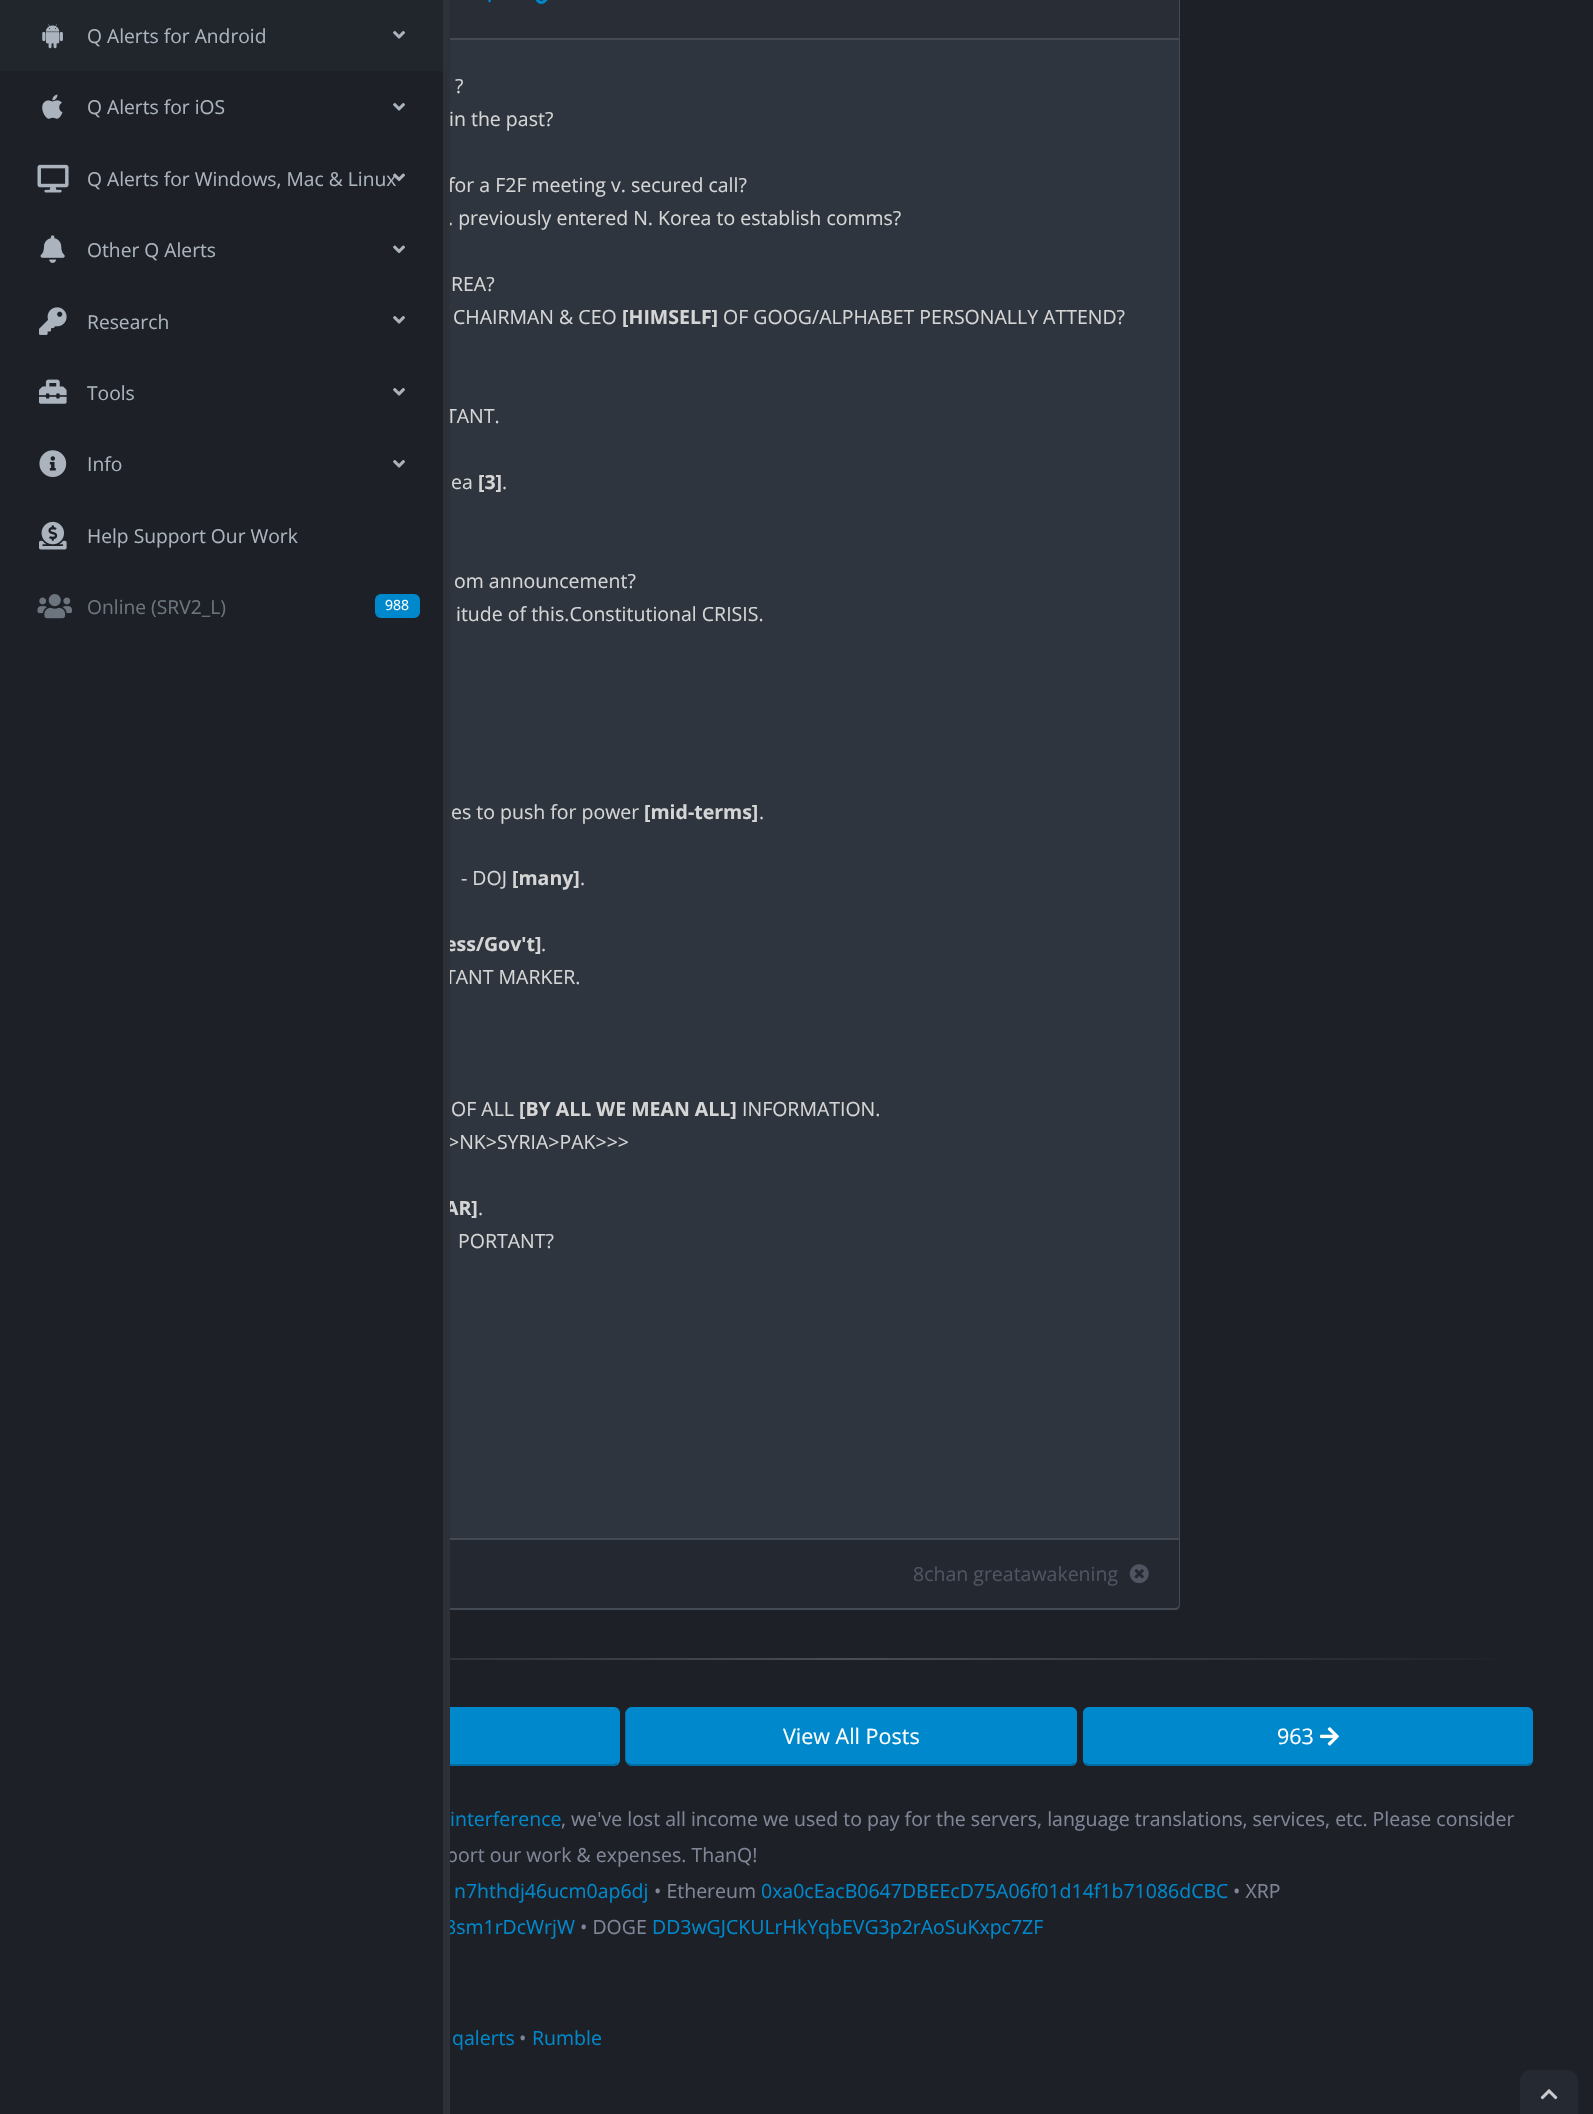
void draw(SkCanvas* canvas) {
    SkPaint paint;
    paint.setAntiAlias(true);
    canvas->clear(0xFF1D2127);
    paint.setColor(0xFF444A54);
    canvas->drawPath(SkPathBuilder().moveTo(1179, -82).cubicTo(1180, -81, 1180, -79, 1180, -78).lineTo(1180, 1604).cubicTo(1180, 1605, 1180, 1607, 1179, 1608).lineTo(1178, 1607).lineTo(1179, 1604).lineTo(1179, -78).cubicTo(1179, -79, 1178, -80, 1177, -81).close().detach(), paint);
    canvas->drawPath(SkPathBuilder().moveTo(173, 1610).lineTo(172, 1609).lineTo(175, 1608).lineTo(176, 1608).lineTo(1174, 1608).cubicTo(1176, 1608, 1177, 1607, 1178, 1607).lineTo(1179, 1608).lineTo(1177, 1610).close().detach(), paint);
    paint.setColor(0xFF242830);
    canvas->drawPath(SkPathBuilder().moveTo(174, 1538).lineTo(1179, 1538).lineTo(1179, 1603).cubicTo(1179, 1606, 1177, 1608, 1174, 1608).lineTo(179, 1608).cubicTo(176, 1608, 174, 1606, 174, 1603).close().detach(), paint);
    paint.setColor(0xFF0088CC);
    canvas->drawRoundRect(SkRect::MakeXYWH(170, 1707, 450, 59), 6, 6, paint);
    paint.setStyle(SkPaint::kStroke_Style);
    paint.setStrokeWidth(1.5f);
    paint.setColor(0xFF006699);
    canvas->drawPath(SkPathBuilder().moveTo(617, 1763).cubicTo(616, 1764, 615, 1765, 613.5f, 1765).lineTo(175.5f, 1765).cubicTo(174, 1765, 173, 1764, 172, 1763).detach(), paint);
    paint.setColor(0xFF0088CC);
    canvas->drawPath(SkPathBuilder().moveTo(172, 1763).cubicTo(171, 1762, 170, 1761, 170, 1759.5f).lineTo(170, 1713).cubicTo(170, 1711.5f, 171, 1710.5f, 172, 1709.5f).cubicTo(173, 1708.5f, 174, 1708, 175.5f, 1708).lineTo(613.5f, 1708).cubicTo(615, 1708, 616, 1708.5f, 617, 1709.5f).cubicTo(618, 1710.5f, 619, 1711.5f, 619, 1713).lineTo(619, 1759.5f).cubicTo(619, 1761, 618, 1762, 617, 1763).detach(), paint);
    paint.setStyle(SkPaint::kFill_Style);
    paint.setColor(0xFF1D2127);
    canvas->drawRect(SkRect::MakeXYWH(169, 1538, 274, 228), paint);
    paint.setColor(0xFF2E353E);
    canvas->drawRect(SkRect::MakeXYWH(450, 40, 729, 1498), paint);
    SkFont font1(fontMgr->matchFamilyStyle("Open Sans", SkFontStyle::Normal()), 19.5f);
    font1.setSubpixel(true);
    paint.setColor(0xFFD5D5D5);
    canvas->drawString("for a F2F meeting v. secured call?", 448, 192, font1, paint);
    canvas->drawString(". previously entered N. Korea to establish comms?", 448, 225, font1, paint);
    canvas->drawString("TANT.", 446, 423, font1, paint);
    SkFont font2(fontMgr->matchFamilyStyle("Open Sans", SkFontStyle::Bold()), 19.5f);
    font2.setSubpixel(true);
    canvas->drawString("ess/Gov't]", 445, 951, font2, paint);
    canvas->drawString("TANT MARKER.", 445, 984, font1, paint);
    canvas->drawString(">NK>SYRIA>PAK>>>", 448, 1149, font1, paint);
    canvas->drawString("AR]", 445, 1215, font2, paint);
    paint.setColor(0xFF808697);
    canvas->drawString("port our work & expenses. ThanQ!", 446, 1862, font1, paint);
    paint.setColor(0xFF0088CC);
    canvas->drawString("8sm1rDcWrjW", 445, 1934, font1, paint);
    paint.setColor(0xFF2F3139);
    canvas->drawRect(SkRect::MakeXYWH(443, 0, 7, 2114), paint);
    paint.setColor(0xFF21262D);
    canvas->drawRect(SkRect::MakeXYWH(0, 0, 443, 71), paint);
    canvas->drawImageRect(SkImages::DeferredFromEncodedData(SkData::MakeFromFileName("img1.png")), SkRect::MakeXYWH(42, 24, 21, 25), SkSamplingOptions());
    SkFont font3(fontMgr->matchFamilyStyle("Open Sans", SkFontStyle::Normal()), 19.25f);
    font3.setSubpixel(true);
    paint.setColor(0xFFABB4BE);
    canvas->drawString("Q Alerts for Android", 87, 43, font3, paint);
    canvas->drawImageRect(SkImages::DeferredFromEncodedData(SkData::MakeFromFileName("img2.png")), SkRect::MakeXYWH(393, 31, 12, 8), SkSamplingOptions());
    canvas->drawImageRect(SkImages::DeferredFromEncodedData(SkData::MakeFromFileName("img3.png")), SkRect::MakeXYWH(42, 94, 21, 25), SkSamplingOptions());
    canvas->drawString("Q Alerts for iOS", 87, 114, font3, paint);
    canvas->drawImageRect(SkImages::DeferredFromEncodedData(SkData::MakeFromFileName("img4.png")), SkRect::MakeXYWH(393, 103, 12, 8), SkSamplingOptions());
    canvas->drawImageRect(SkImages::DeferredFromEncodedData(SkData::MakeFromFileName("img5.png")), SkRect::MakeXYWH(37, 164, 32, 29), SkSamplingOptions());
    canvas->drawString("Q Alerts for Windows, Mac & Linux", 87, 186, font3, paint);
    canvas->drawImageRect(SkImages::DeferredFromEncodedData(SkData::MakeFromFileName("img6.png")), SkRect::MakeXYWH(393, 173, 12, 9), SkSamplingOptions());
    canvas->drawImageRect(SkImages::DeferredFromEncodedData(SkData::MakeFromFileName("img7.png")), SkRect::MakeXYWH(40, 235, 25, 28), SkSamplingOptions());
    canvas->drawString("Other Q Alerts", 87, 257, font3, paint);
    canvas->drawImageRect(SkImages::DeferredFromEncodedData(SkData::MakeFromFileName("img8.png")), SkRect::MakeXYWH(393, 245, 12, 9), SkSamplingOptions());
    canvas->drawImageRect(SkImages::DeferredFromEncodedData(SkData::MakeFromFileName("img9.png")), SkRect::MakeXYWH(39, 307, 28, 28), SkSamplingOptions());
    canvas->drawString("Research", 87, 329, font3, paint);
    canvas->drawImageRect(SkImages::DeferredFromEncodedData(SkData::MakeFromFileName("img4.png")), SkRect::MakeXYWH(393, 316, 12, 8), SkSamplingOptions());
    canvas->drawImageRect(SkImages::DeferredFromEncodedData(SkData::MakeFromFileName("img10.png")), SkRect::MakeXYWH(39, 379, 28, 25), SkSamplingOptions());
    canvas->drawString("Tools", 87, 400, font3, paint);
    canvas->drawImageRect(SkImages::DeferredFromEncodedData(SkData::MakeFromFileName("img4.png")), SkRect::MakeXYWH(393, 388, 12, 8), SkSamplingOptions());
    canvas->drawImageRect(SkImages::DeferredFromEncodedData(SkData::MakeFromFileName("img11.png")), SkRect::MakeXYWH(39, 450, 28, 27), SkSamplingOptions());
    canvas->drawString("Info", 87, 471, font3, paint);
    canvas->drawImageRect(SkImages::DeferredFromEncodedData(SkData::MakeFromFileName("img4.png")), SkRect::MakeXYWH(393, 460, 12, 8), SkSamplingOptions());
    canvas->drawImageRect(SkImages::DeferredFromEncodedData(SkData::MakeFromFileName("img12.png")), SkRect::MakeXYWH(39, 521, 28, 29), SkSamplingOptions());
    canvas->drawString("Help Support Our Work", 87, 543, font3, paint);
    canvas->drawImageRect(SkImages::DeferredFromEncodedData(SkData::MakeFromFileName("img13.png")), SkRect::MakeXYWH(37, 594, 35, 25), SkSamplingOptions());
    paint.setColor(0xFF6C757D);
    canvas->drawString("Online (SRV2_L)", 87, 614, font3, paint);
    paint.setColor(0xFF0088CC);
    canvas->drawRoundRect(SkRect::MakeXYWH(375, 594, 45, 24), 6, 6, paint);
    SkFont font4(fontMgr->matchFamilyStyle("Open Sans", SkFontStyle::Normal()), 14);
    font4.setSubpixel(true);
    paint.setColor(0xFFFFFFFF);
    canvas->drawString("988", 385, 610, font4, paint);
    paint.setColor(0xFF282D36);
    canvas->drawRect(SkRect::MakeXYWH(450, 0, 729, 38), paint);
    paint.setColor(0xFF444A54);
    canvas->drawRect(SkRect::MakeXYWH(450, 38, 729, 2), paint);
    paint.setColor(0xFF0088CC);
    canvas->drawString(".", 487, 2, font1, paint);
    canvas->drawImageRect(SkImages::DeferredFromEncodedData(SkData::MakeFromFileName("img14.png")), SkRect::MakeXYWH(535, 0, 13, 4), SkSamplingOptions());
    paint.setColor(0xFFD5D5D5);
    canvas->drawString("?", 455, 93, font1, paint);
    canvas->drawString("in the past?", 449, 126, font1, paint);
    canvas->drawString("REA?", 451, 291, font1, paint);
    canvas->drawString("CHAIRMAN & CEO", 453, 324, font1, paint);
    canvas->drawString("[HIMSELF]", 622, 324, font2, paint);
    canvas->drawString("OF GOOG/ALPHABET PERSONALLY ATTEND?", 723, 324, font1, paint);
    canvas->drawString("ea", 451, 489, font1, paint);
    canvas->drawString("[3]", 478, 489, font2, paint);
    canvas->drawString(".", 502, 489, font1, paint);
    canvas->drawString("om announcement?", 454, 588, font1, paint);
    canvas->drawString("itude of this.Constitutional CRISIS.", 456, 621, font1, paint);
    canvas->drawString("es to push for power", 451, 819, font1, paint);
    canvas->drawString("[mid-terms]", 644, 819, font2, paint);
    canvas->drawString(".", 759, 819, font1, paint);
    canvas->drawString("- DOJ", 461, 885, font1, paint);
    canvas->drawString("[many]", 512, 885, font2, paint);
    canvas->drawString(".", 580, 885, font1, paint);
    canvas->drawString(".", 541, 951, font1, paint);
    canvas->drawString("OF ALL", 451, 1116, font1, paint);
    canvas->drawString("[BY ALL WE MEAN ALL]", 519, 1116, font2, paint);
    canvas->drawString("INFORMATION.", 742, 1116, font1, paint);
    canvas->drawString(".", 478, 1215, font1, paint);
    canvas->drawString("PORTANT?", 458, 1248, font1, paint);
    paint.setColor(0xFF444A54);
    canvas->drawRect(SkRect::MakeXYWH(450, 1538, 729, 2), paint);
    paint.setColor(0xFF505461);
    canvas->drawString("8chan greatawakening", 913, 1581, font1, paint);
    canvas->drawImageRect(SkImages::DeferredFromEncodedData(SkData::MakeFromFileName("img15.png")), SkRect::MakeXYWH(1129, 1564, 20, 20), SkSamplingOptions());
    {
        const SkColor colors[] = {0xFF1D2127, 0xFF4A4D52, 0xFF1D2127};
        const float stops[] = {0, 0.5f, 1};
        const SkPoint ends[] = {{1533, 1658}, {170, 1658}};
        paint.setShader(SkGradientShader::MakeLinear(ends, colors, stops, 3, SkTileMode::kClamp));
        paint.setAlpha(255);
    }
    canvas->drawRect(SkRect::MakeXYWH(450, 1658, 1045, 2), paint);
    paint.setShader(nullptr);
    paint.setColor(0xFF0088CC);
    canvas->drawRoundRect(SkRect::MakeXYWH(626, 1707, 451, 59), 6, 6, paint);
    paint.setStyle(SkPaint::kStroke_Style);
    paint.setColor(0xFF006699);
    canvas->drawPath(SkPathBuilder().moveTo(1074.5f, 1763).cubicTo(1073.5f, 1764, 1072.5f, 1765, 1071, 1765).lineTo(631.5f, 1765).cubicTo(630, 1765, 629, 1764, 628, 1763).detach(), paint);
    paint.setColor(0xFF0088CC);
    canvas->drawPath(SkPathBuilder().moveTo(628, 1763).cubicTo(627, 1762, 626, 1761, 626, 1759.5f).lineTo(626, 1713).cubicTo(626, 1711.5f, 627, 1710.5f, 628, 1709.5f).cubicTo(629, 1708.5f, 630, 1708, 631.5f, 1708).lineTo(1071, 1708).cubicTo(1072.5f, 1708, 1073.5f, 1708.5f, 1074.5f, 1709.5f).cubicTo(1075.5f, 1710.5f, 1076, 1711.5f, 1076, 1713).lineTo(1076, 1759.5f).cubicTo(1076, 1761, 1075.5f, 1762, 1074.5f, 1763).detach(), paint);
    SkFont font5(fontMgr->matchFamilyStyle("Open Sans", SkFontStyle::Normal()), 21.5f);
    font5.setSubpixel(true);
    paint.setStyle(SkPaint::kFill_Style);
    paint.setColor(0xFFFFFFFF);
    canvas->drawString("View All Posts", 783, 1744, font5, paint);
    paint.setColor(0xFF0088CC);
    canvas->drawRoundRect(SkRect::MakeXYWH(1083, 1707, 450, 59), 6, 6, paint);
    paint.setStyle(SkPaint::kStroke_Style);
    paint.setColor(0xFF006699);
    canvas->drawPath(SkPathBuilder().moveTo(1530.5f, 1763).cubicTo(1529.5f, 1764, 1528.5f, 1765, 1527, 1765).lineTo(1089, 1765).cubicTo(1087.5f, 1765, 1086.5f, 1764, 1085.5f, 1763).detach(), paint);
    paint.setColor(0xFF0088CC);
    canvas->drawPath(SkPathBuilder().moveTo(1085.5f, 1763).cubicTo(1084.5f, 1762, 1084, 1761, 1084, 1759.5f).lineTo(1084, 1713).cubicTo(1084, 1711.5f, 1084.5f, 1710.5f, 1085.5f, 1709.5f).cubicTo(1086.5f, 1708.5f, 1087.5f, 1708, 1089, 1708).lineTo(1527, 1708).cubicTo(1528.5f, 1708, 1529.5f, 1708.5f, 1530.5f, 1709.5f).cubicTo(1531.5f, 1710.5f, 1532, 1711.5f, 1532, 1713).lineTo(1532, 1759.5f).cubicTo(1532, 1761, 1531.5f, 1762, 1530.5f, 1763).detach(), paint);
    paint.setStyle(SkPaint::kFill_Style);
    paint.setColor(0xFFFFFFFF);
    canvas->drawString("963", 1277, 1744, font5, paint);
    canvas->drawImageRect(SkImages::DeferredFromEncodedData(SkData::MakeFromFileName("img16.png")), SkRect::MakeXYWH(1320, 1727, 19, 19), SkSamplingOptions());
    paint.setColor(0xFF0088CC);
    canvas->drawString("interference", 450, 1826, font1, paint);
    paint.setColor(0xFF808697);
    canvas->drawString(", we've lost all income we used to pay for the servers, language translations, services, etc. Please consider", 561, 1826, font1, paint);
    paint.setColor(0xFF0088CC);
    canvas->drawString("n7hthdj46ucm0ap6dj", 454, 1898, font1, paint);
    paint.setColor(0xFF808697);
    canvas->drawString("• Ethereum", 654, 1898, font1, paint);
    paint.setColor(0xFF0088CC);
    canvas->drawString("0xa0cEacB0647DBEEcD75A06f01d14f1b71086dCBC", 761, 1898, font1, paint);
    paint.setColor(0xFF808697);
    canvas->drawString("• XRP", 1233, 1898, font1, paint);
    canvas->drawString("• DOGE", 580, 1934, font1, paint);
    paint.setColor(0xFF0088CC);
    canvas->drawString("DD3wGJCKULrHkYqbEVG3p2rAoSuKxpc7ZF", 652, 1934, font1, paint);
    canvas->drawString("qalerts", 452, 2045, font1, paint);
    paint.setColor(0xFF808697);
    canvas->drawString("•", 519, 2045, font1, paint);
    paint.setColor(0xFF0088CC);
    canvas->drawString("Rumble", 532, 2045, font1, paint);
    paint.setColor(0xFF252A32);
    canvas->drawPath(SkPathBuilder().moveTo(1531, 2070).lineTo(1567, 2070).cubicTo(1573, 2070, 1578, 2075, 1578, 2081).lineTo(1578, 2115).lineTo(1520, 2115).lineTo(1520, 2081).cubicTo(1520, 2075, 1525, 2070, 1531, 2070).close().detach(), paint);
    canvas->drawImageRect(SkImages::DeferredFromEncodedData(SkData::MakeFromFileName("img17.png")), SkRect::MakeXYWH(1540, 2089, 18, 11), SkSamplingOptions());
}
